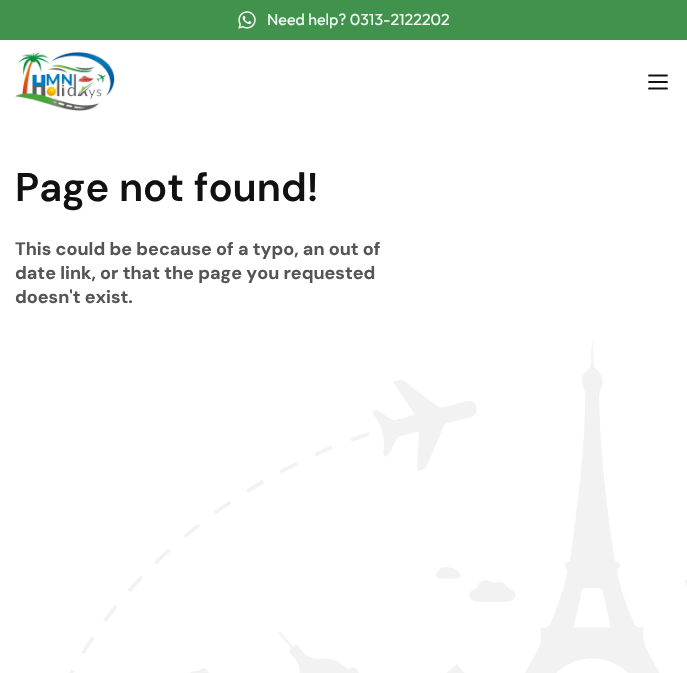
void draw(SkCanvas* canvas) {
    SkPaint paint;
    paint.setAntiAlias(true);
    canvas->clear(0xFFFFFFFF);
    paint.setColor(0xFF41924C);
    canvas->drawRect(SkRect::MakeXYWH(0, 0, 687, 40), paint);
    canvas->drawImageRect(SkImages::DeferredFromEncodedData(SkData::MakeFromFileName("img1.png")), SkRect::MakeXYWH(238, 11, 18, 18), SkSamplingOptions());
    SkFont font1(fontMgr->matchFamilyStyle("Outfit", SkFontStyle::Normal()), 16);
    font1.setSubpixel(true);
    paint.setColor(0xFFF4FAF7);
    canvas->drawString("Need help? 0313-2122202", 267, 25, font1, paint);
    canvas->drawImageRect(SkImages::DeferredFromEncodedData(SkData::MakeFromFileName("img2.png")), SkRect::MakeXYWH(15, 52, 100, 59), SkSamplingOptions());
    paint.setStyle(SkPaint::kStroke_Style);
    paint.setStrokeWidth(1.8f);
    paint.setStrokeCap(SkPaint::kRound_Cap);
    paint.setStrokeJoin(SkPaint::kRound_Join);
    paint.setColor(0xFF111111);
    canvas->drawPath(SkPathBuilder().moveTo(649, 75.5f).lineTo(667, 75.5f).moveTo(649, 82).lineTo(667, 82).moveTo(649, 88.5f).lineTo(667, 88.5f).detach(), paint);
    SkFont font2(fontMgr->matchFamilyStyle("DM Sans", SkFontStyle(600, SkFontStyle::kNormal_Width, SkFontStyle::kUpright_Slant)), 40);
    font2.setSubpixel(true);
    paint.setStyle(SkPaint::kFill_Style);
    canvas->drawString("Page not found!", 15, 201, font2, paint);
    SkFont font3(fontMgr->matchFamilyStyle("DM Sans", SkFontStyle::Bold()), 18);
    font3.setSubpixel(true);
    paint.setColor(0xFF555555);
    canvas->drawString("This could be because of a typo, an out of", 15, 255, font3, paint);
    canvas->drawString("date link, or that the page you requested", 15, 279, font3, paint);
    canvas->drawString("doesn't exist.", 15, 303, font3, paint);
    canvas->drawImageRect(SkImages::DeferredFromEncodedData(SkData::MakeFromFileName("img3.png")), SkRect::MakeXYWH(69, 342, 618, 331), SkSamplingOptions());
}
